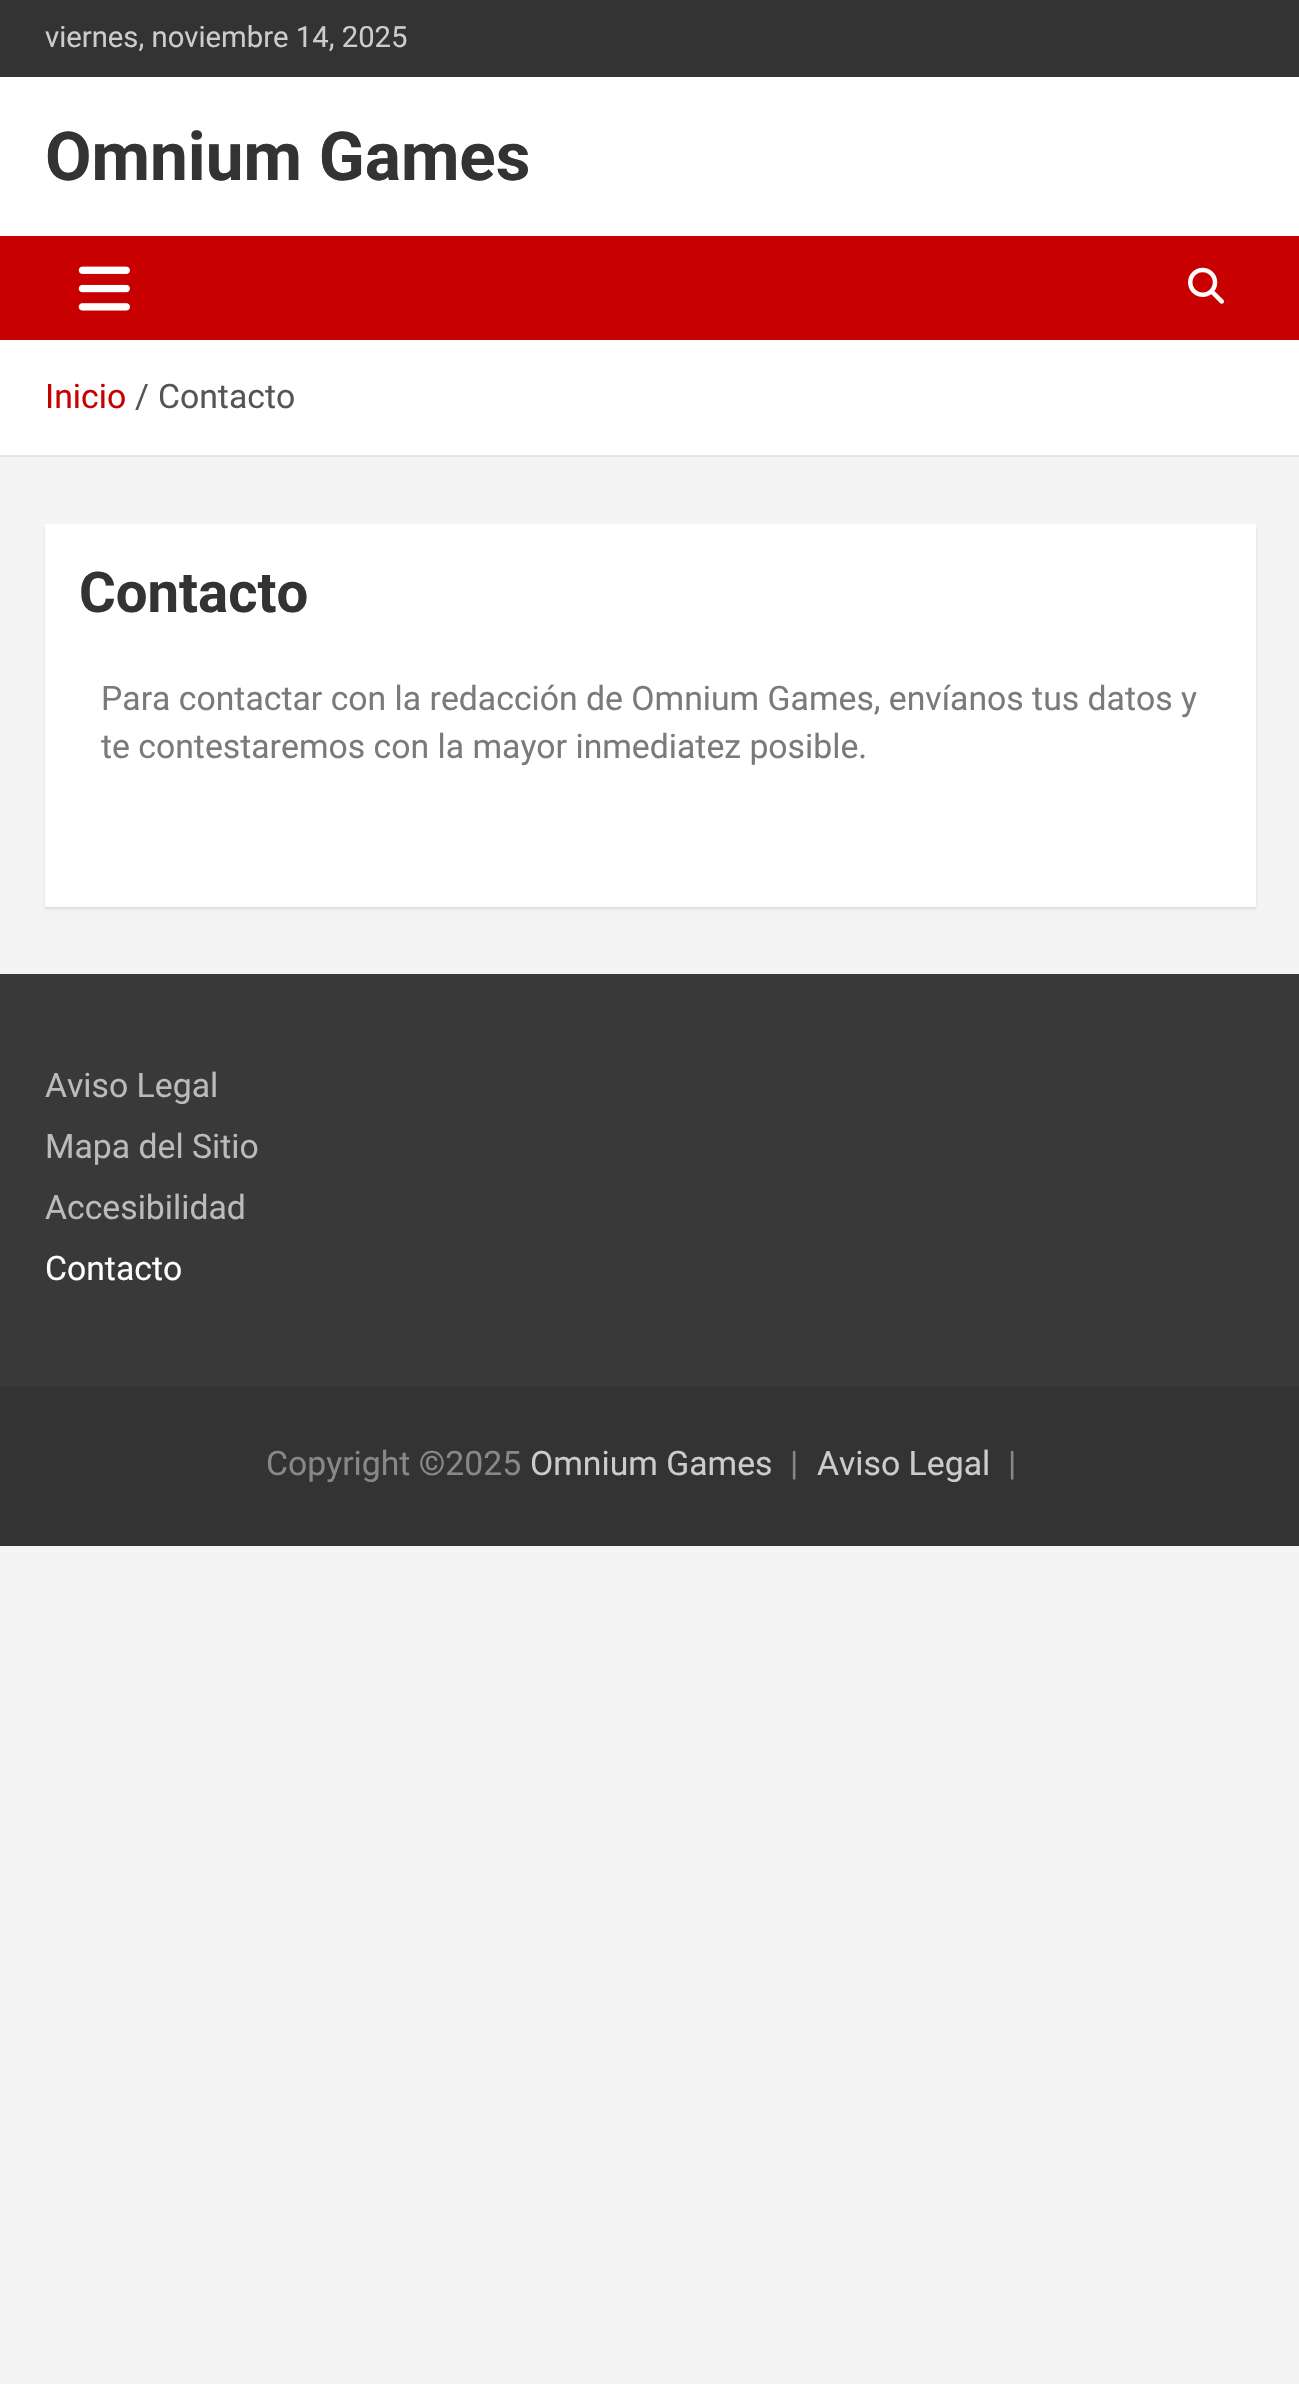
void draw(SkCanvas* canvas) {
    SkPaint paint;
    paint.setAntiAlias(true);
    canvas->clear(0xFFF4F4F4);
    paint.setColor(0xFF333333);
    canvas->drawRect(SkRect::MakeXYWH(0, 0, 1299, 77), paint);
    SkFont font1(fontMgr->matchFamilyStyle("Roboto", SkFontStyle::Normal()), 29.25f);
    font1.setSubpixel(true);
    paint.setColor(0xFFCCCCCC);
    canvas->drawString("viernes, noviembre 14, 2025", 45, 47, font1, paint);
    paint.setColor(0xFFFFFFFF);
    canvas->drawRect(SkRect::MakeXYWH(0, 77, 1299, 159), paint);
    SkFont font2(fontMgr->matchFamilyStyle("Roboto", SkFontStyle::Bold()), 67.5f);
    font2.setSubpixel(true);
    paint.setColor(0xFF333333);
    canvas->drawString("Omnium Games", 45, 180, font2, paint);
    paint.setColor(0xFFC80000);
    canvas->drawRect(SkRect::MakeXYWH(0, 236, 1299, 104), paint);
    canvas->drawImageRect(SkImages::DeferredFromEncodedData(SkData::MakeFromFileName("img1.png")), SkRect::MakeXYWH(78, 266, 52, 45), SkSamplingOptions());
    canvas->drawImageRect(SkImages::DeferredFromEncodedData(SkData::MakeFromFileName("img2.png")), SkRect::MakeXYWH(1188, 267, 36, 37), SkSamplingOptions());
    paint.setColor(0xFFFFFFFF);
    canvas->drawRect(SkRect::MakeXYWH(0, 340, 1299, 115), paint);
    paint.setColor(0xFFE6E6E6);
    canvas->drawRect(SkRect::MakeXYWH(0, 455, 1299, 2), paint);
    SkFont font3(fontMgr->matchFamilyStyle("Roboto", SkFontStyle::Normal()), 33.75f);
    font3.setSubpixel(true);
    paint.setColor(0xFFC80000);
    canvas->drawString("Inicio", 45, 408, font3, paint);
    paint.setColor(0xFF555555);
    canvas->drawString("/", 135, 408, font3, paint);
    canvas->drawString("Contacto", 158, 408, font3, paint);
    paint.setColor(0x1A000000);
    paint.setMaskFilter(SkMaskFilter::MakeBlur(kNormal_SkBlurStyle, 1));
    canvas->drawRect(SkRect::MakeXYWH(45, 527, 1211, 382), paint);
    paint.setMaskFilter(nullptr);
    paint.setColor(0xFFFFFFFF);
    canvas->drawRect(SkRect::MakeXYWH(45, 524, 1211, 383), paint);
    SkFont font4(fontMgr->matchFamilyStyle("Roboto", SkFontStyle::Bold()), 56.25f);
    font4.setSubpixel(true);
    paint.setColor(0xFF333333);
    canvas->drawString("Contacto", 79, 612, font4, paint);
    paint.setColor(0xFF7A7A7A);
    canvas->drawString("Para contactar con la redacción de Omnium Games, envíanos tus datos y", 101, 710, font3, paint);
    canvas->drawString("te contestaremos con la mayor inmediatez posible.", 101, 758, font3, paint);
    paint.setColor(0xFF393939);
    canvas->drawRect(SkRect::MakeXYWH(0, 974, 1299, 412), paint);
    paint.setColor(0xFFBBBBBB);
    canvas->drawString("Aviso Legal", 45, 1097, font3, paint);
    canvas->drawString("Mapa del Sitio", 45, 1158, font3, paint);
    canvas->drawString("Accesibilidad", 45, 1219, font3, paint);
    paint.setColor(0xFFFFFFFF);
    canvas->drawString("Contacto", 45, 1280, font3, paint);
    paint.setColor(0xFF333333);
    canvas->drawRect(SkRect::MakeXYWH(0, 1386, 1299, 160), paint);
    paint.setColor(0xFF888888);
    canvas->drawString("Copyright ©2025", 266, 1475, font3, paint);
    paint.setColor(0xFFCCCCCC);
    canvas->drawString("Omnium Games", 530, 1475, font3, paint);
    paint.setColor(0xFF888888);
    canvas->drawString("|", 790, 1475, font3, paint);
    paint.setColor(0xFFCCCCCC);
    canvas->drawString("Aviso Legal", 817, 1475, font3, paint);
    paint.setColor(0xFF888888);
    canvas->drawString("|", 1008, 1475, font3, paint);
}
